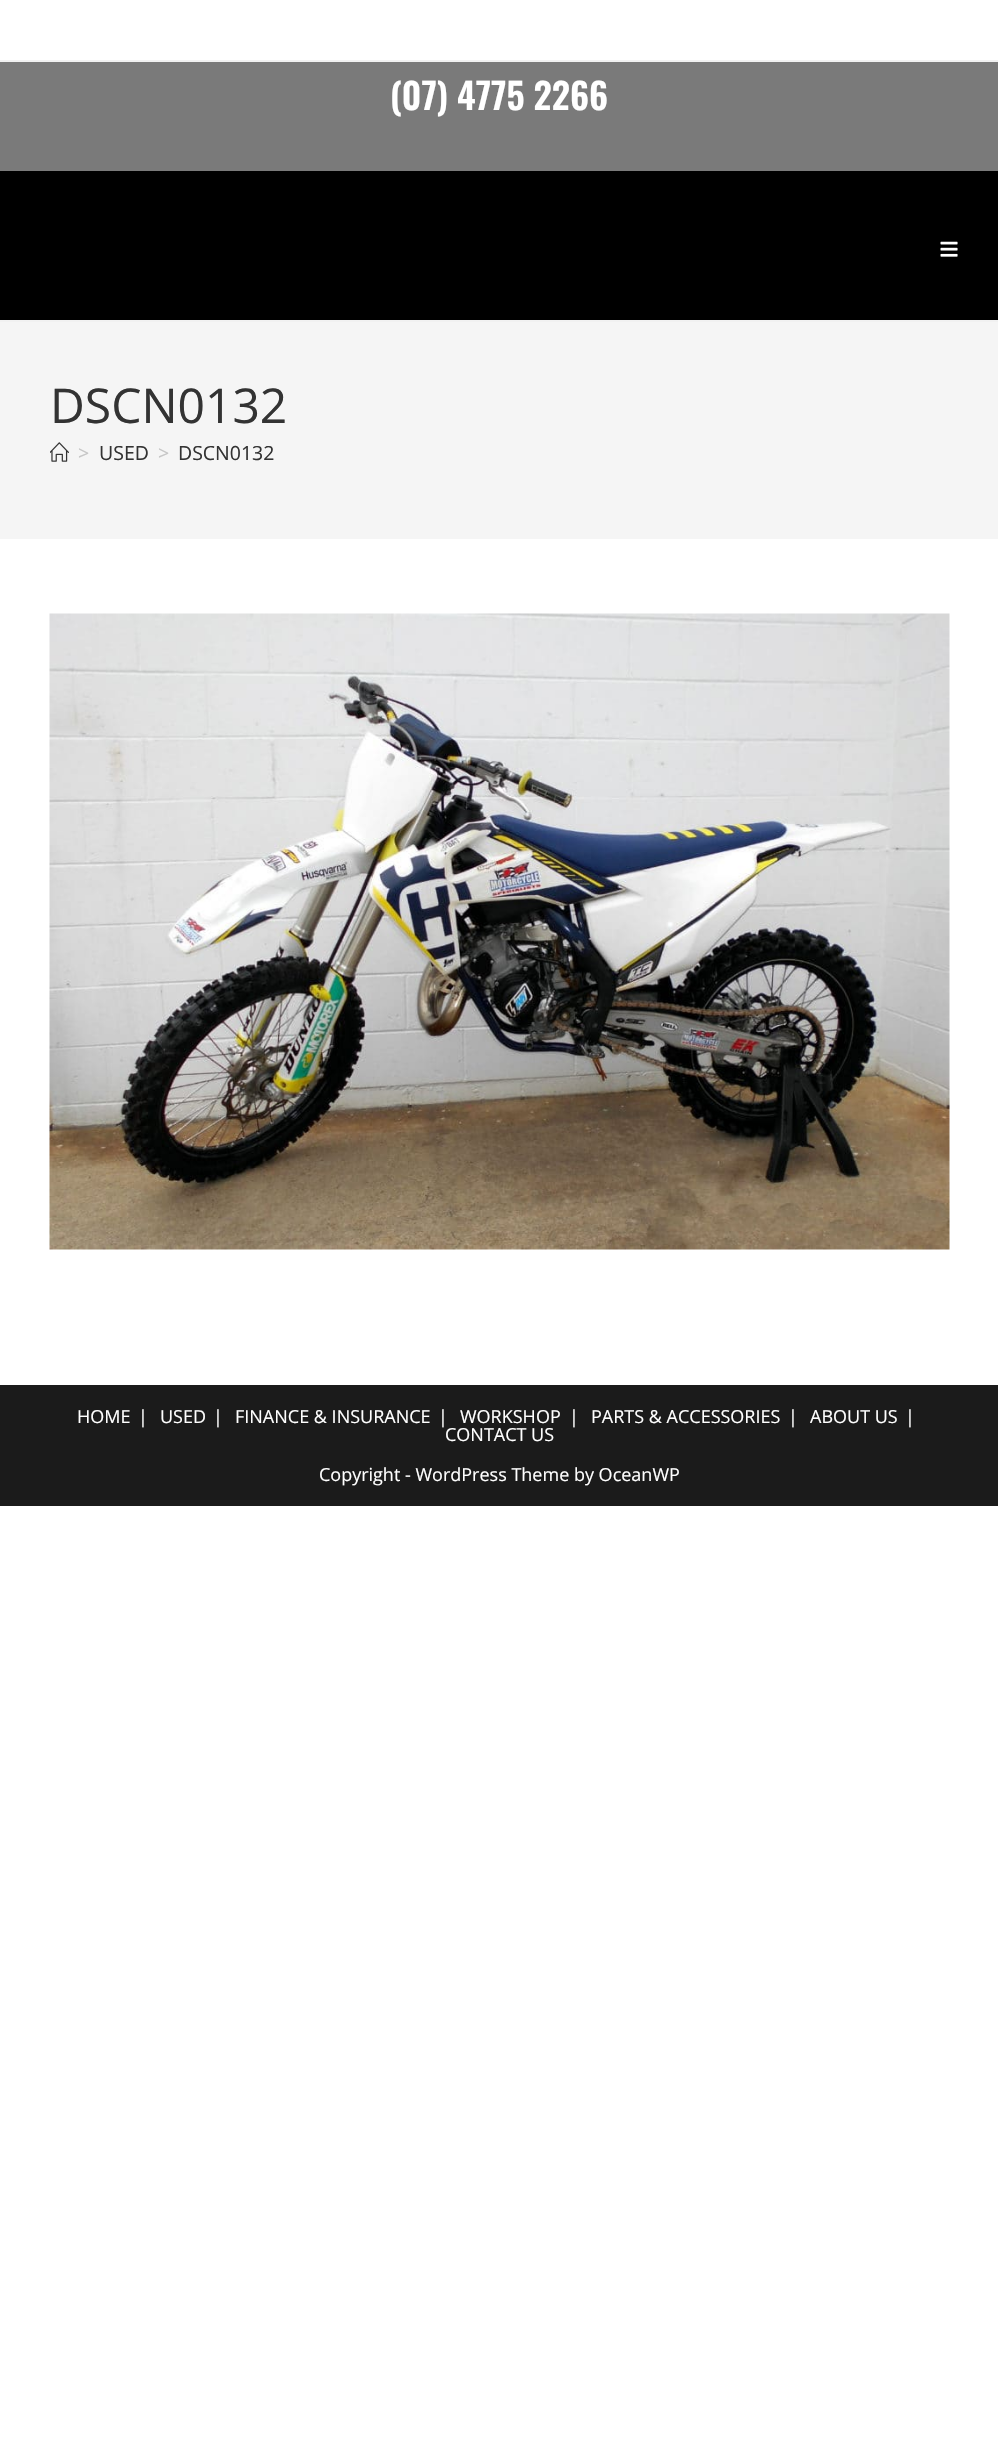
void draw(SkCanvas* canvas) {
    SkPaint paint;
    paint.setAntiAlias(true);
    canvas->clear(0xFFFFFFFF);
    paint.setColor(0xFFF1F1F1);
    canvas->drawRect(SkRect::MakeXYWH(0, 60, 998, 2), paint);
    canvas->drawRect(SkRect::MakeXYWH(0, 320, 998, 2), paint);
    paint.setColor(0xFF7A7A7A);
    canvas->drawRect(SkRect::MakeXYWH(0, 62, 998, 109), paint);
    SkFont font1(fontMgr->matchFamilyStyle("Oswald", SkFontStyle(600, SkFontStyle::kNormal_Width, SkFontStyle::kUpright_Slant)), 36);
    font1.setSubpixel(true);
    paint.setColor(0xFFFFFFFF);
    canvas->drawString("(07) 4775 2266", 390, 110, font1, paint);
    paint.setColor(0xFF000000);
    canvas->drawRect(SkRect::MakeXYWH(0, 171, 998, 149), paint);
    canvas->drawImageRect(SkImages::DeferredFromEncodedData(SkData::MakeFromFileName("img1.png")), SkRect::MakeXYWH(940, 241, 18, 16), SkSamplingOptions());
    paint.setColor(0xFFF5F5F5);
    canvas->drawRect(SkRect::MakeXYWH(0, 322, 998, 217), paint);
    SkFont font2(fontMgr->matchFamilyStyle("Open Sans", SkFontStyle::Normal()), 48);
    font2.setSubpixel(true);
    paint.setColor(0xFF333333);
    canvas->drawString("DSCN0132", 50, 423, font2, paint);
    canvas->drawImageRect(SkImages::DeferredFromEncodedData(SkData::MakeFromFileName("img2.png")), SkRect::MakeXYWH(50, 442, 19, 20), SkSamplingOptions());
    SkFont font3(fontMgr->matchFamilyStyle("Open Sans", SkFontStyle::Normal()), 19.5f);
    font3.setSubpixel(true);
    paint.setColor(0xFFC6C6C6);
    canvas->drawString(">", 78, 460, font3, paint);
    paint.setColor(0xFF333333);
    canvas->drawString("USED", 99, 460, font3, paint);
    paint.setColor(0xFFC6C6C6);
    canvas->drawString(">", 158, 460, font3, paint);
    paint.setColor(0xFF333333);
    canvas->drawString("DSCN0132", 178, 460, font3, paint);
    canvas->drawImageRect(SkImages::DeferredFromEncodedData(SkData::MakeFromFileName("img3.png")), SkRect::MakeXYWH(49, 613, 901, 637), SkSamplingOptions());
    paint.setColor(0xFF1B1B1B);
    canvas->drawRect(SkRect::MakeXYWH(0, 1385, 998, 121), paint);
    SkFont font4(fontMgr->matchFamilyStyle("Open Sans", SkFontStyle::Normal()), 18);
    font4.setSubpixel(true);
    paint.setColor(0xFFFFFFFF);
    canvas->drawString("HOME", 77, 1423, font4, paint);
    canvas->drawString("|", 138, 1423, font4, paint);
    canvas->drawString("USED", 160, 1423, font4, paint);
    canvas->drawString("|", 213, 1423, font4, paint);
    canvas->drawString("FINANCE & INSURANCE", 235, 1423, font4, paint);
    canvas->drawString("|", 438, 1423, font4, paint);
    canvas->drawString("WORKSHOP", 460, 1423, font4, paint);
    canvas->drawString("|", 569, 1423, font4, paint);
    canvas->drawString("PARTS & ACCESSORIES", 591, 1423, font4, paint);
    canvas->drawString("|", 788, 1423, font4, paint);
    canvas->drawString("ABOUT US", 810, 1423, font4, paint);
    canvas->drawString("|", 905, 1423, font4, paint);
    canvas->drawString("CONTACT US", 445, 1441, font4, paint);
    canvas->drawString("Copyright - WordPress Theme by OceanWP", 319, 1481, font4, paint);
}
